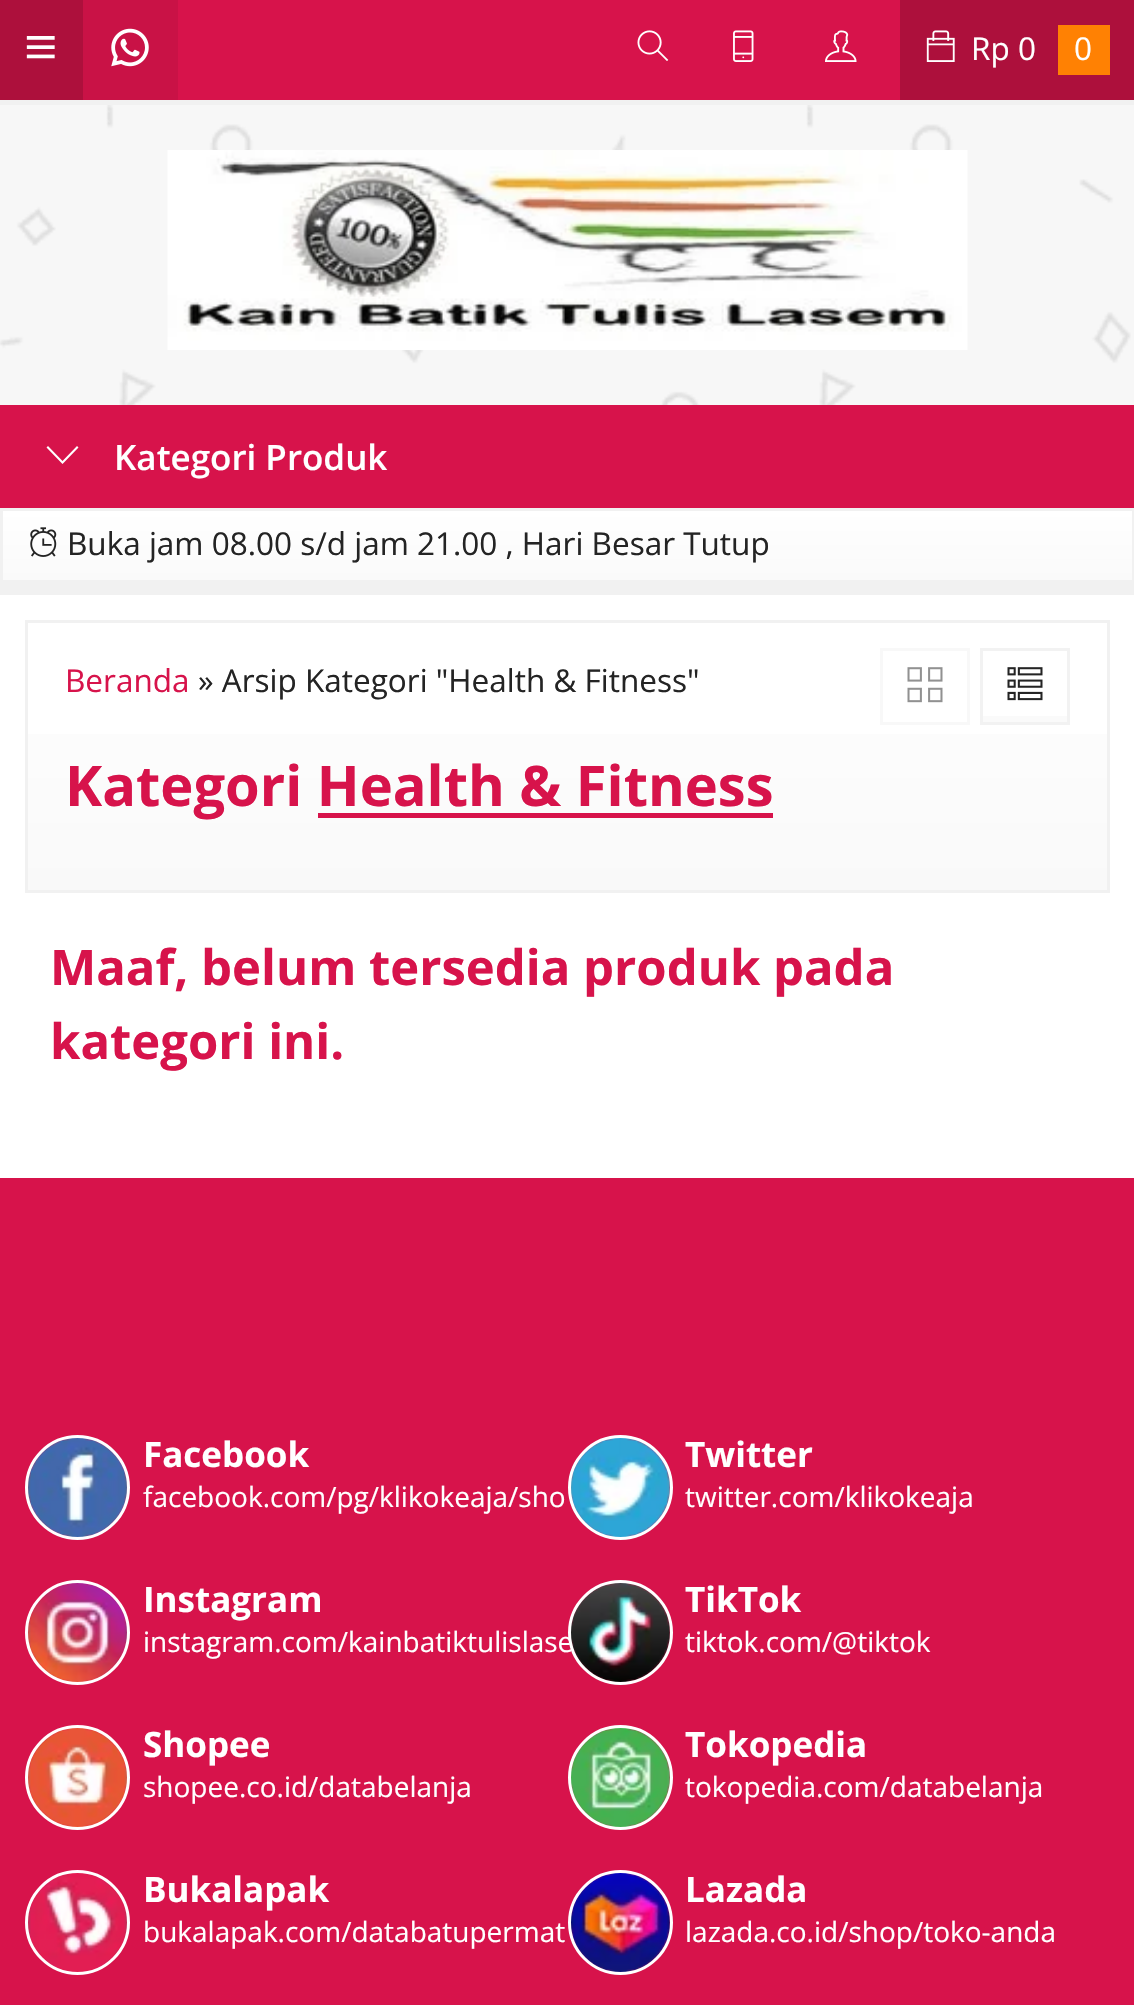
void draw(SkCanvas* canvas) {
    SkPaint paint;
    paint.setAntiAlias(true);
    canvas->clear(0xFFF1F1F1);
    paint.setColor(0xFFD7134B);
    canvas->drawRect(SkRect::MakeXYWH(178, 0, 722, 100), paint);
    paint.setColor(0xFFAD103C);
    canvas->drawRect(SkRect::MakeXYWH(0, 0, 83, 100), paint);
    canvas->drawImageRect(SkImages::DeferredFromEncodedData(SkData::MakeFromFileName("img1.png")), SkRect::MakeXYWH(26, 36, 29, 23), SkSamplingOptions());
    paint.setColor(0xFFC91246);
    canvas->drawRect(SkRect::MakeXYWH(83, 0, 95, 100), paint);
    canvas->drawImageRect(SkImages::DeferredFromEncodedData(SkData::MakeFromFileName("img2.png")), SkRect::MakeXYWH(111, 28, 38, 39), SkSamplingOptions());
    canvas->drawImageRect(SkImages::DeferredFromEncodedData(SkData::MakeFromFileName("img3.png")), SkRect::MakeXYWH(637, 30, 32, 31), SkSamplingOptions());
    canvas->drawImageRect(SkImages::DeferredFromEncodedData(SkData::MakeFromFileName("img4.png")), SkRect::MakeXYWH(733, 30, 21, 32), SkSamplingOptions());
    canvas->drawImageRect(SkImages::DeferredFromEncodedData(SkData::MakeFromFileName("img5.png")), SkRect::MakeXYWH(825, 30, 32, 32), SkSamplingOptions());
    paint.setColor(0xFFAD103C);
    canvas->drawRect(SkRect::MakeXYWH(900, 0, 234, 100), paint);
    canvas->drawImageRect(SkImages::DeferredFromEncodedData(SkData::MakeFromFileName("img6.png")), SkRect::MakeXYWH(926, 30, 29, 32), SkSamplingOptions());
    SkFont font1(fontMgr->matchFamilyStyle("Open Sans", SkFontStyle::Normal()), 31.5f);
    font1.setSubpixel(true);
    paint.setColor(0xFFFFFFFF);
    canvas->drawString("Rp 0", 971, 60, font1, paint);
    paint.setColor(0xFFFF8103);
    canvas->drawRect(SkRect::MakeXYWH(1058, 25, 52, 50), paint);
    paint.setColor(0xFFFFFFFF);
    canvas->drawString("0", 1074, 60, font1, paint);
    paint.setColor(0xFFF7F7F7);
    canvas->drawRect(SkRect::MakeXYWH(0, 105, 1134, 300), paint);
    canvas->drawImageRect(SkImages::DeferredFromEncodedData(SkData::MakeFromFileName("img7.png")), SkRect::MakeXYWH(0, 105, 1131, 300), SkSamplingOptions());
    canvas->drawImageRect(SkImages::DeferredFromEncodedData(SkData::MakeFromFileName("img8.png")), SkRect::MakeXYWH(167, 150, 801, 200), SkSamplingOptions());
    paint.setColor(0xFFD7134B);
    canvas->drawRect(SkRect::MakeXYWH(0, 405, 1134, 103), paint);
    paint.setColor(0xFFFFFFFF);
    canvas->drawPath(SkPathBuilder().moveTo(78.5f, 447.5f).lineTo(62.5f, 464).lineTo(46.5f, 447.5f).lineTo(48, 446).lineTo(62.5f, 461).lineTo(77, 446).close().detach(), paint);
    SkFont font2(fontMgr->matchFamilyStyle("Open Sans", SkFontStyle(600, SkFontStyle::kNormal_Width, SkFontStyle::kUpright_Slant)), 35);
    font2.setSubpixel(true);
    canvas->drawString("Kategori Produk", 114, 470, font2, paint);
    {
        const SkColor colors[] = {0xFFFAFAFA, 0xFFFFFFFF};
        const float stops[] = {0, 1};
        const SkPoint ends[] = {{568, 580}, {568, 510}};
        paint.setShader(SkGradientShader::MakeLinear(ends, colors, stops, 2, SkTileMode::kClamp));
        paint.setAlpha(255);
    }
    canvas->drawRect(SkRect::MakeXYWH(3, 511, 1129, 69), paint);
    canvas->drawImageRect(SkImages::DeferredFromEncodedData(SkData::MakeFromFileName("img9.png")), SkRect::MakeXYWH(30, 527, 27, 30), SkSamplingOptions());
    paint.setShader(nullptr);
    paint.setColor(0xFF242424);
    canvas->drawString("Buka jam 08.00 s/d jam 21.00 , Hari Besar Tutup", 67, 555, font1, paint);
    paint.setColor(0xFFFFFFFF);
    canvas->drawRect(SkRect::MakeXYWH(0, 595, 1134, 583), paint);
    {
        const SkColor colors[] = {0xFFFFFFFF, 0xFFF9F9F9};
        const float stops[] = {0, 1};
        const SkPoint ends[] = {{568, 622}, {568, 890}};
        paint.setShader(SkGradientShader::MakeLinear(ends, colors, stops, 2, SkTileMode::kClamp));
        paint.setAlpha(255);
    }
    canvas->drawRect(SkRect::MakeXYWH(28, 734, 1079, 156), paint);
    paint.setStyle(SkPaint::kStroke_Style);
    paint.setStrokeWidth(3);
    paint.setShader(nullptr);
    paint.setColor(0xFFF1F1F1);
    canvas->drawRect(SkRect::MakeXYWH(26.5f, 621.5f, 1082, 270), paint);
    paint.setStyle(SkPaint::kFill_Style);
    paint.setColor(0xFFD7134B);
    canvas->drawString("Beranda", 65, 692, font1, paint);
    paint.setColor(0xFF242424);
    canvas->drawString("» Arsip Kategori \"Health & Fitness\"", 198, 692, font1, paint);
    paint.setStyle(SkPaint::kStroke_Style);
    paint.setColor(0xFFF8F8F8);
    canvas->drawRect(SkRect::MakeXYWH(881.5f, 649.5f, 87, 74), paint);
    paint.setStyle(SkPaint::kFill_Style);
    {
        const SkColor colors[] = {0xFFFAFAFA, 0xFFFFFFFF};
        const float stops[] = {0, 1};
        const SkPoint ends[] = {{1025, 723}, {1025, 650}};
        paint.setShader(SkGradientShader::MakeLinear(ends, colors, stops, 2, SkTileMode::kClamp));
        paint.setAlpha(255);
    }
    canvas->drawRect(SkRect::MakeXYWH(983, 716, 84, 6), paint);
    paint.setStyle(SkPaint::kStroke_Style);
    paint.setShader(nullptr);
    paint.setColor(0xFFF2F2F2);
    canvas->drawRect(SkRect::MakeXYWH(981.5f, 649.5f, 87, 74), paint);
    canvas->drawImageRect(SkImages::DeferredFromEncodedData(SkData::MakeFromFileName("img10.png")), SkRect::MakeXYWH(907, 667, 36, 36), SkSamplingOptions());
    canvas->drawImageRect(SkImages::DeferredFromEncodedData(SkData::MakeFromFileName("img11.png")), SkRect::MakeXYWH(1007, 667, 36, 34), SkSamplingOptions());
    SkFont font3(fontMgr->matchFamilyStyle("Open Sans", SkFontStyle::Bold()), 56);
    font3.setSubpixel(true);
    paint.setStyle(SkPaint::kFill_Style);
    paint.setColor(0xFFD7134B);
    canvas->drawString("Kategori Health & Fitness", 65, 806, font3, paint);
    canvas->drawRect(SkRect::MakeXYWH(318, 813, 455, 5), paint);
    SkFont font4(fontMgr->matchFamilyStyle("Open Sans", SkFontStyle::Bold()), 49);
    font4.setSubpixel(true);
    canvas->drawString("Maaf, belum tersedia produk pada", 50, 985, font4, paint);
    canvas->drawString("kategori ini.", 50, 1059, font4, paint);
    canvas->drawRect(SkRect::MakeXYWH(0, 1178, 1134, 827), paint);
    canvas->drawImageRect(SkImages::DeferredFromEncodedData(SkData::MakeFromFileName("img12.png")), SkRect::MakeXYWH(26, 1437, 103, 101), SkSamplingOptions());
    paint.setStyle(SkPaint::kStroke_Style);
    paint.setColor(0xFFFFFFFF);
    canvas->drawCircle(77.5f, 1487.5f, 51, paint);
    SkFont font5(fontMgr->matchFamilyStyle("Open Sans", SkFontStyle::Bold()), 35);
    font5.setSubpixel(true);
    paint.setStyle(SkPaint::kFill_Style);
    canvas->drawString("Facebook", 143, 1467, font5, paint);
    SkFont font6(fontMgr->matchFamilyStyle("Open Sans", SkFontStyle::Normal()), 28);
    font6.setSubpixel(true);
    canvas->drawString("facebook.com/pg/klikokeaja/sho", 143, 1507, font6, paint);
    canvas->drawImageRect(SkImages::DeferredFromEncodedData(SkData::MakeFromFileName("img13.png")), SkRect::MakeXYWH(569, 1437, 102, 101), SkSamplingOptions());
    paint.setStyle(SkPaint::kStroke_Style);
    canvas->drawCircle(620.5f, 1487.5f, 51, paint);
    paint.setStyle(SkPaint::kFill_Style);
    canvas->drawString("Twitter", 685, 1467, font5, paint);
    canvas->drawString("twitter.com/klikokeaja", 685, 1507, font6, paint);
    canvas->drawImageRect(SkImages::DeferredFromEncodedData(SkData::MakeFromFileName("img14.png")), SkRect::MakeXYWH(27, 1582, 102, 101), SkSamplingOptions());
    paint.setStyle(SkPaint::kStroke_Style);
    canvas->drawCircle(77.5f, 1632.5f, 51, paint);
    paint.setStyle(SkPaint::kFill_Style);
    canvas->drawString("Instagram", 143, 1612, font5, paint);
    canvas->drawString("instagram.com/kainbatiktulislase", 143, 1652, font6, paint);
    canvas->drawImageRect(SkImages::DeferredFromEncodedData(SkData::MakeFromFileName("img15.png")), SkRect::MakeXYWH(569, 1582, 102, 101), SkSamplingOptions());
    paint.setStyle(SkPaint::kStroke_Style);
    canvas->drawCircle(620.5f, 1632.5f, 51, paint);
    paint.setStyle(SkPaint::kFill_Style);
    canvas->drawString("TikTok", 685, 1612, font5, paint);
    canvas->drawString("tiktok.com/@tiktok", 685, 1652, font6, paint);
    canvas->drawImageRect(SkImages::DeferredFromEncodedData(SkData::MakeFromFileName("img16.png")), SkRect::MakeXYWH(26, 1727, 103, 101), SkSamplingOptions());
    paint.setStyle(SkPaint::kStroke_Style);
    canvas->drawCircle(77.5f, 1777.5f, 51, paint);
    paint.setStyle(SkPaint::kFill_Style);
    canvas->drawString("Shopee", 143, 1757, font5, paint);
    canvas->drawString("shopee.co.id/databelanja", 143, 1797, font6, paint);
    canvas->drawImageRect(SkImages::DeferredFromEncodedData(SkData::MakeFromFileName("img17.png")), SkRect::MakeXYWH(570, 1727, 101, 101), SkSamplingOptions());
    paint.setStyle(SkPaint::kStroke_Style);
    canvas->drawCircle(620.5f, 1777.5f, 51, paint);
    paint.setStyle(SkPaint::kFill_Style);
    canvas->drawString("Tokopedia", 685, 1757, font5, paint);
    canvas->drawString("tokopedia.com/databelanja", 685, 1797, font6, paint);
    canvas->drawImageRect(SkImages::DeferredFromEncodedData(SkData::MakeFromFileName("img18.png")), SkRect::MakeXYWH(27, 1872, 101, 101), SkSamplingOptions());
    paint.setStyle(SkPaint::kStroke_Style);
    canvas->drawCircle(77.5f, 1922.5f, 51, paint);
    paint.setStyle(SkPaint::kFill_Style);
    canvas->drawString("Bukalapak", 143, 1902, font5, paint);
    canvas->drawString("bukalapak.com/databatupermat", 143, 1942, font6, paint);
    canvas->drawImageRect(SkImages::DeferredFromEncodedData(SkData::MakeFromFileName("img19.png")), SkRect::MakeXYWH(569, 1872, 102, 101), SkSamplingOptions());
    paint.setStyle(SkPaint::kStroke_Style);
    canvas->drawCircle(620.5f, 1922.5f, 51, paint);
    paint.setStyle(SkPaint::kFill_Style);
    canvas->drawString("Lazada", 685, 1902, font5, paint);
    canvas->drawString("lazada.co.id/shop/toko-anda", 685, 1942, font6, paint);
}
